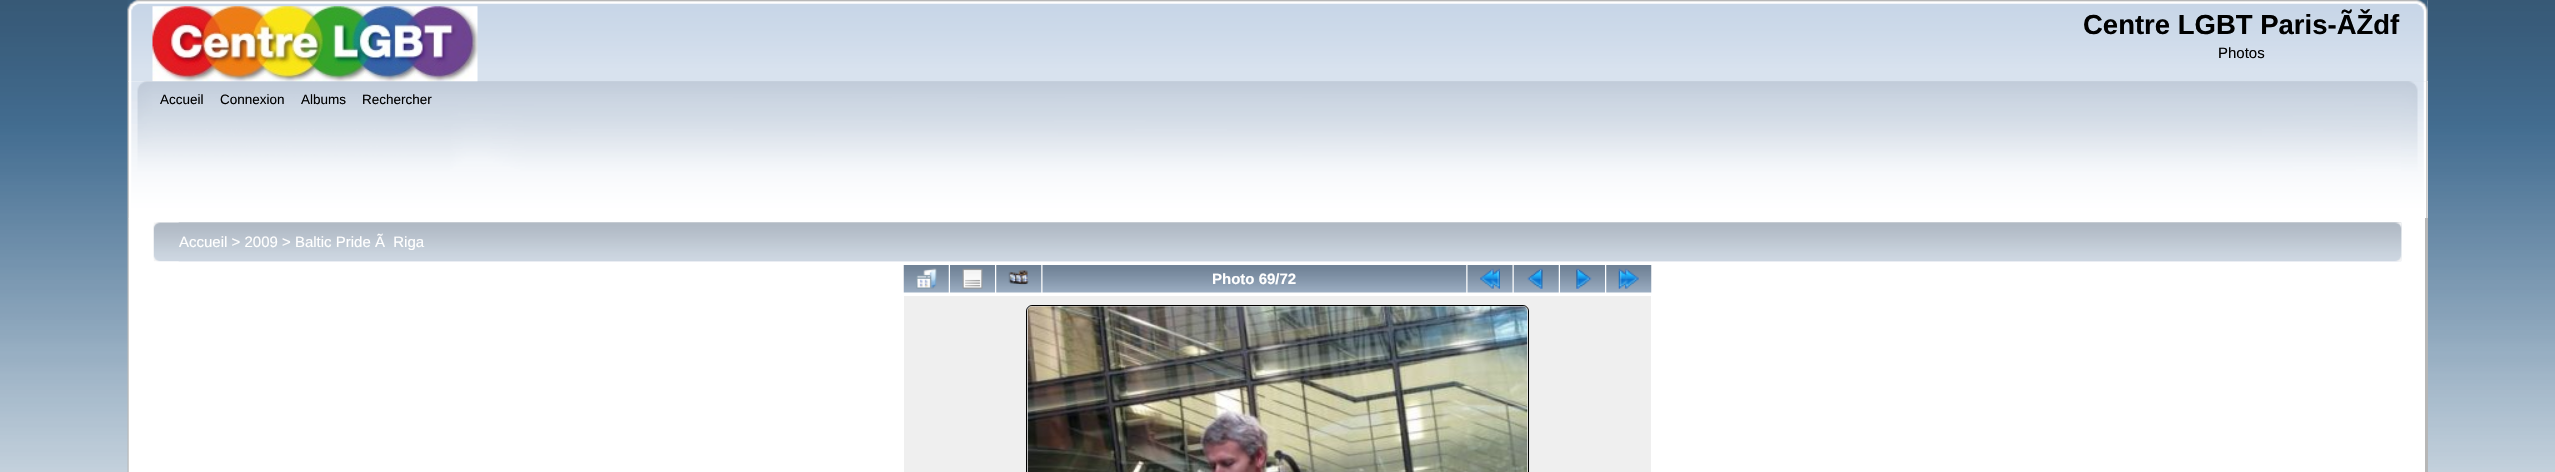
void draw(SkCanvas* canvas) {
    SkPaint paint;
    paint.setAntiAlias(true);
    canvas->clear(0xFFFFFFFF);
    canvas->drawImageRect(SkImages::DeferredFromEncodedData(SkData::MakeFromFileName("img1.png")), SkRect::MakeXYWH(0, 0, 2555, 472), SkSamplingOptions());
    canvas->drawImageRect(SkImages::DeferredFromEncodedData(SkData::MakeFromFileName("img2.png")), SkRect::MakeXYWH(127, 0, 2301, 82), SkSamplingOptions());
    canvas->drawImageRect(SkImages::DeferredFromEncodedData(SkData::MakeFromFileName("img3.png")), SkRect::MakeXYWH(152, 0, 2276, 81), SkSamplingOptions());
    paint.setColor(0xFFFEFEFE);
    canvas->drawRect(SkRect::MakeXYWH(128, 81, 2300, 138), paint);
    canvas->drawImageRect(SkImages::DeferredFromEncodedData(SkData::MakeFromFileName("img5.png")), SkRect::MakeXYWH(127, 81, 2301, 138), SkSamplingOptions());
    canvas->drawImageRect(SkImages::DeferredFromEncodedData(SkData::MakeFromFileName("img6.png")), SkRect::MakeXYWH(152, 81, 2276, 138), SkSamplingOptions());
    canvas->drawImageRect(SkImages::DeferredFromEncodedData(SkData::MakeFromFileName("img4.png")), SkRect::MakeXYWH(152, 6, 326, 76), SkSamplingOptions());
    SkFont font1(fontMgr->matchFamilyStyle("Liberation Sans", SkFontStyle::Bold()), 27.5f);
    font1.setSubpixel(true);
    paint.setColor(0xFF000000);
    canvas->drawString("Centre LGBT Paris-ÃŽdf", 2083, 34, font1, paint);
    SkFont font2(fontMgr->matchFamilyStyle("Liberation Sans", SkFontStyle::Normal()), 15);
    font2.setSubpixel(true);
    canvas->drawString("Photos", 2218, 58, font2, paint);
    SkFont font3(fontMgr->matchFamilyStyle("Liberation Sans", SkFontStyle::Normal()), 13.5f);
    font3.setSubpixel(true);
    canvas->drawString("Accueil", 160, 104, font3, paint);
    canvas->drawString("Connexion", 220, 104, font3, paint);
    canvas->drawString("Albums", 301, 104, font3, paint);
    canvas->drawString("Rechercher", 362, 104, font3, paint);
    canvas->drawImageRect(SkImages::DeferredFromEncodedData(SkData::MakeFromFileName("img7.png")), SkRect::MakeXYWH(127, 218, 2298, 254), SkSamplingOptions());
    paint.setColor(0xFFB7B7B7);
    canvas->drawRect(SkRect::MakeXYWH(2425, 218, 3, 254), paint);
    canvas->drawImageRect(SkImages::DeferredFromEncodedData(SkData::MakeFromFileName("img8.png")), SkRect::MakeXYWH(153, 222, 2249, 40), SkSamplingOptions());
    canvas->drawImageRect(SkImages::DeferredFromEncodedData(SkData::MakeFromFileName("img9.png")), SkRect::MakeXYWH(178, 222, 2224, 40), SkSamplingOptions());
    paint.setColor(0xFFFFFFFF);
    canvas->drawString("Accueil > 2009 > Baltic Pride Ã  Riga", 179, 247, font2, paint);
    canvas->drawImageRect(SkImages::DeferredFromEncodedData(SkData::MakeFromFileName("img10.png")), SkRect::MakeXYWH(903, 265, 46, 28), SkSamplingOptions());
    canvas->drawImageRect(SkImages::DeferredFromEncodedData(SkData::MakeFromFileName("img11.png")), SkRect::MakeXYWH(916, 268, 21, 21), SkSamplingOptions());
    canvas->drawImageRect(SkImages::DeferredFromEncodedData(SkData::MakeFromFileName("img12.png")), SkRect::MakeXYWH(950, 265, 45, 28), SkSamplingOptions());
    canvas->drawImageRect(SkImages::DeferredFromEncodedData(SkData::MakeFromFileName("img13.png")), SkRect::MakeXYWH(962, 268, 21, 21), SkSamplingOptions());
    canvas->drawImageRect(SkImages::DeferredFromEncodedData(SkData::MakeFromFileName("img14.png")), SkRect::MakeXYWH(996, 265, 46, 28), SkSamplingOptions());
    canvas->drawImageRect(SkImages::DeferredFromEncodedData(SkData::MakeFromFileName("img15.png")), SkRect::MakeXYWH(1008, 270, 21, 15), SkSamplingOptions());
    canvas->drawImageRect(SkImages::DeferredFromEncodedData(SkData::MakeFromFileName("img16.png")), SkRect::MakeXYWH(1042, 265, 425, 28), SkSamplingOptions());
    SkFont font4(fontMgr->matchFamilyStyle("Liberation Sans", SkFontStyle::Bold()), 15);
    font4.setSubpixel(true);
    canvas->drawString("Photo 69/72", 1212, 284, font4, paint);
    canvas->drawImageRect(SkImages::DeferredFromEncodedData(SkData::MakeFromFileName("img17.png")), SkRect::MakeXYWH(1467, 265, 46, 28), SkSamplingOptions());
    canvas->drawImageRect(SkImages::DeferredFromEncodedData(SkData::MakeFromFileName("img18.png")), SkRect::MakeXYWH(1480, 268, 20, 21), SkSamplingOptions());
    canvas->drawImageRect(SkImages::DeferredFromEncodedData(SkData::MakeFromFileName("img10.png")), SkRect::MakeXYWH(1513, 265, 46, 28), SkSamplingOptions());
    canvas->drawImageRect(SkImages::DeferredFromEncodedData(SkData::MakeFromFileName("img19.png")), SkRect::MakeXYWH(1527, 268, 16, 21), SkSamplingOptions());
    canvas->drawImageRect(SkImages::DeferredFromEncodedData(SkData::MakeFromFileName("img12.png")), SkRect::MakeXYWH(1560, 265, 45, 28), SkSamplingOptions());
    canvas->drawImageRect(SkImages::DeferredFromEncodedData(SkData::MakeFromFileName("img20.png")), SkRect::MakeXYWH(1576, 268, 16, 21), SkSamplingOptions());
    canvas->drawImageRect(SkImages::DeferredFromEncodedData(SkData::MakeFromFileName("img14.png")), SkRect::MakeXYWH(1606, 265, 46, 28), SkSamplingOptions());
    canvas->drawImageRect(SkImages::DeferredFromEncodedData(SkData::MakeFromFileName("img21.png")), SkRect::MakeXYWH(1618, 268, 21, 21), SkSamplingOptions());
    paint.setColor(0xFFEFEFEF);
    canvas->drawRect(SkRect::MakeXYWH(904, 296, 747, 176), paint);
    paint.setStyle(SkPaint::kStroke_Style);
    paint.setStrokeWidth(1);
    paint.setColor(0xFF000000);
    canvas->drawRoundRect(SkRect::MakeXYWH(1026.5f, 305.5f, 502, 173), 5.5f, 5.5f, paint);
    canvas->drawImageRect(SkImages::DeferredFromEncodedData(SkData::MakeFromFileName("img22.png")), SkRect::MakeXYWH(1027, 306, 501, 166), SkSamplingOptions());
}
